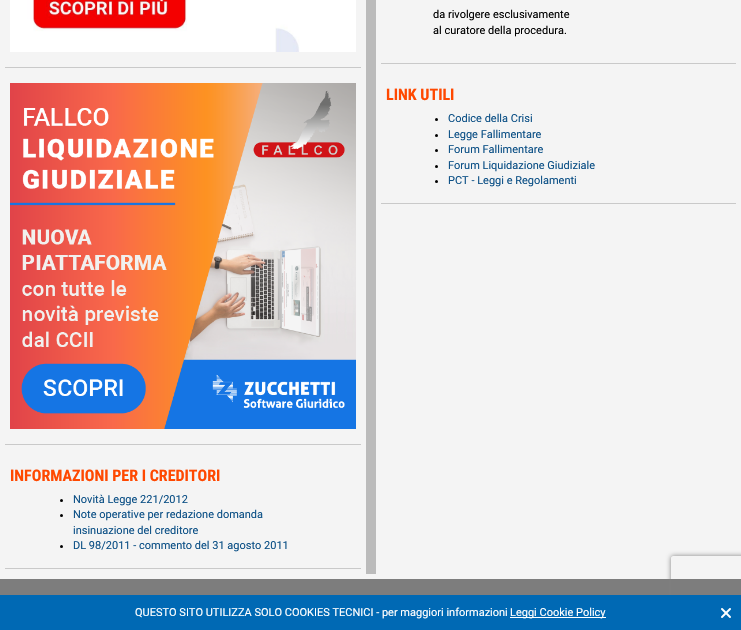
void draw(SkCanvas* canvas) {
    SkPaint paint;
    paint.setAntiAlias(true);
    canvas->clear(0xFF7D7D7D);
    paint.setColor(0xFFF4F4F4);
    canvas->drawRect(SkRect::MakeXYWH(0, 0, 741, 579), paint);
    paint.setColor(0xFFC9C9C9);
    canvas->drawRect(SkRect::MakeXYWH(381, 63, 355, 1), paint);
    SkFont font1(fontMgr->matchFamilyStyle("Roboto", SkFontStyle::Normal()), 11);
    font1.setSubpixel(true);
    paint.setColor(0xFF000000);
    canvas->drawString("da rivolgere esclusivamente", 433, 18, font1, paint);
    canvas->drawString("al curatore della procedura.", 433, 34, font1, paint);
    paint.setColor(0xFFC9C9C9);
    canvas->drawRect(SkRect::MakeXYWH(381, 203, 355, 1), paint);
    SkFont font2(fontMgr->matchFamilyStyle("Roboto Condensed", SkFontStyle::Bold()), 16);
    font2.setSubpixel(true);
    paint.setColor(0xFFFF4800);
    canvas->drawString("LINK UTILI", 386, 100, font2, paint);
    paint.setColor(0xFF000000);
    canvas->drawCircle(436.5f, 119.5f, 1.5f, paint);
    paint.setColor(0xFF0C5086);
    canvas->drawString("Codice della Crisi", 448, 122, font1, paint);
    paint.setColor(0xFF000000);
    canvas->drawCircle(436.5f, 135.5f, 1.5f, paint);
    paint.setColor(0xFF0C5086);
    canvas->drawString("Legge Fallimentare", 448, 138, font1, paint);
    paint.setColor(0xFF000000);
    canvas->drawCircle(436.5f, 150.5f, 1.5f, paint);
    paint.setColor(0xFF0C5086);
    canvas->drawString("Forum Fallimentare", 448, 153, font1, paint);
    paint.setColor(0xFF000000);
    canvas->drawCircle(436.5f, 166.5f, 1.5f, paint);
    paint.setColor(0xFF0C5086);
    canvas->drawString("Forum Liquidazione Giudiziale", 448, 169, font1, paint);
    paint.setColor(0xFF000000);
    canvas->drawCircle(436.5f, 181.5f, 1.5f, paint);
    paint.setColor(0xFF0C5086);
    canvas->drawString("PCT - Leggi e Regolamenti", 448, 184, font1, paint);
    paint.setColor(0xFFBBBBBB);
    canvas->drawRect(SkRect::MakeXYWH(366, 0, 10, 574), paint);
    paint.setColor(0xFFC9C9C9);
    canvas->drawRect(SkRect::MakeXYWH(5, 67, 356, 1), paint);
    canvas->drawImageRect(SkImages::DeferredFromEncodedData(SkData::MakeFromFileName("img1.png")), SkRect::MakeXYWH(10, 0, 346, 52), SkSamplingOptions());
    canvas->drawRect(SkRect::MakeXYWH(5, 444, 356, 1), paint);
    canvas->drawImageRect(SkImages::DeferredFromEncodedData(SkData::MakeFromFileName("img2.png")), SkRect::MakeXYWH(10, 83, 346, 346), SkSamplingOptions());
    canvas->drawRect(SkRect::MakeXYWH(5, 568, 356, 1), paint);
    paint.setColor(0xFFFF4800);
    canvas->drawString("INFORMAZIONI PER I CREDITORI", 10, 481, font2, paint);
    paint.setColor(0xFF000000);
    canvas->drawCircle(61.5f, 500.5f, 1.5f, paint);
    paint.setColor(0xFF0C5086);
    canvas->drawString("Novità Legge 221/2012", 73, 503, font1, paint);
    paint.setColor(0xFF000000);
    canvas->drawCircle(61.5f, 515.5f, 1.5f, paint);
    paint.setColor(0xFF0C5086);
    canvas->drawString("Note operative per redazione domanda", 73, 518, font1, paint);
    canvas->drawString("insinuazione del creditore", 73, 534, font1, paint);
    paint.setColor(0xFF000000);
    canvas->drawCircle(61.5f, 546.5f, 1.5f, paint);
    paint.setColor(0xFF0C5086);
    canvas->drawString("DL 98/2011 - commento del 31 agosto 2011", 73, 549, font1, paint);
    canvas->save();
    canvas->clipPath(SkPathBuilder(SkPathFillType::kEvenOdd).moveTo(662, 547).lineTo(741, 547).lineTo(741, 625).lineTo(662, 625).close().moveTo(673, 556).lineTo(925, 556).cubicTo(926, 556, 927, 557, 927, 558).lineTo(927, 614).cubicTo(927, 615, 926, 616, 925, 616).lineTo(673, 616).cubicTo(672, 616, 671, 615, 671, 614).lineTo(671, 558).cubicTo(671, 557, 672, 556, 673, 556).close().detach(), true);
    paint.setColor(0xFF808080);
    paint.setMaskFilter(SkMaskFilter::MakeBlur(kNormal_SkBlurStyle, 2.5f));
    canvas->drawRoundRect(SkRect::MakeXYWH(671, 556, 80, 60), 2, 2, paint);
    paint.setMaskFilter(nullptr);
    canvas->restore();
    paint.setColor(0xFF0069B4);
    canvas->drawRect(SkRect::MakeXYWH(0, 595, 741, 35), paint);
    paint.setColor(0xFFFFFFFF);
    canvas->drawString("QUESTO SITO UTILIZZA SOLO COOKIES TECNICI - per maggiori informazioni", 135, 616, font1, paint);
    canvas->drawRect(SkRect::MakeXYWH(510, 617, 96, 1), paint);
    canvas->drawString("Leggi Cookie Policy", 510, 616, font1, paint);
    canvas->drawImageRect(SkImages::DeferredFromEncodedData(SkData::MakeFromFileName("img3.png")), SkRect::MakeXYWH(721, 608, 10, 10), SkSamplingOptions());
}
